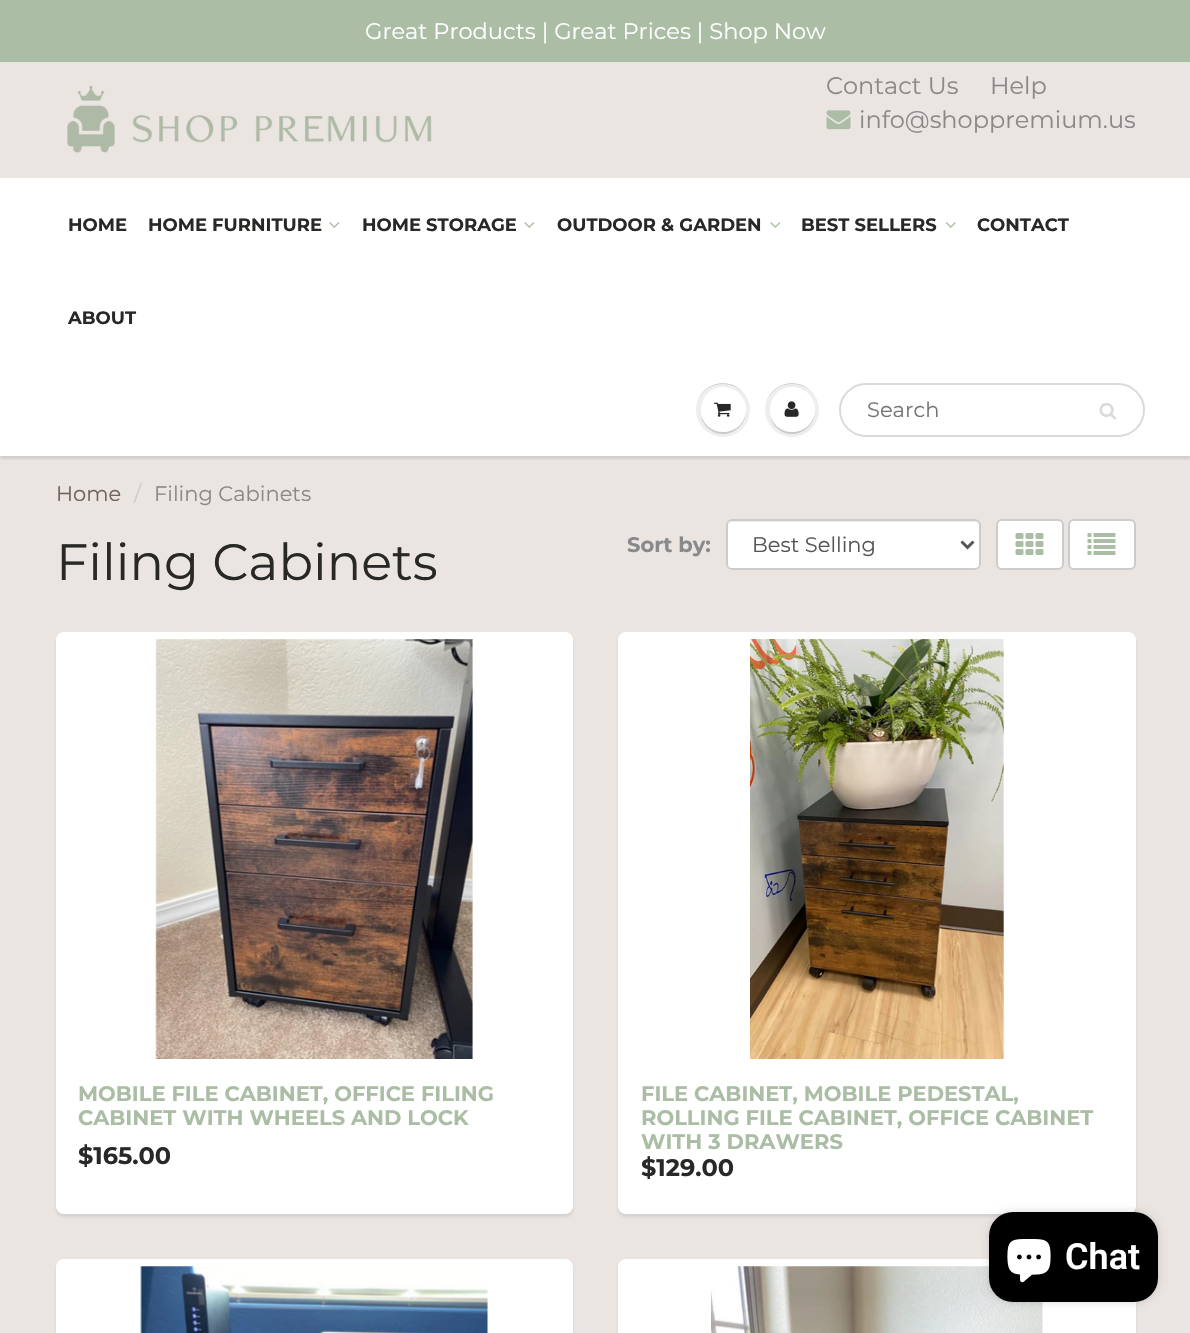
void draw(SkCanvas* canvas) {
    SkPaint paint;
    paint.setAntiAlias(true);
    canvas->clear(0xFFFFFFFF);
    paint.setColor(0xFFABBDA5);
    canvas->drawRect(SkRect::MakeXYWH(0, 0, 1190, 62), paint);
    SkFont font1(fontMgr->matchFamilyStyle("Montserrat", SkFontStyle::Normal()), 22.5f);
    font1.setSubpixel(true);
    paint.setColor(0xFFFFFFFF);
    canvas->drawString("Great Products | Great Prices | Shop Now", 365, 39, font1, paint);
    paint.setColor(0xFFEBE5E2);
    canvas->drawRect(SkRect::MakeXYWH(0, 62, 1190, 114), paint);
    canvas->drawImageRect(SkImages::DeferredFromEncodedData(SkData::MakeFromFileName("img1.png")), SkRect::MakeXYWH(67, 85, 365, 68), SkSamplingOptions());
    SkFont font2(fontMgr->matchFamilyStyle("Montserrat", SkFontStyle::Normal()), 24);
    font2.setSubpixel(true);
    paint.setColor(0xFF898989);
    canvas->drawString("Contact Us", 826, 94, font2, paint);
    canvas->drawString("Help", 990, 94, font2, paint);
    canvas->drawImageRect(SkImages::DeferredFromEncodedData(SkData::MakeFromFileName("img2.png")), SkRect::MakeXYWH(826, 110, 25, 20), SkSamplingOptions());
    canvas->drawString("info@shoppremium.us", 859, 128, font2, paint);
    paint.setColor(0xFFEBE5E2);
    canvas->drawRect(SkRect::MakeXYWH(0, 456, 1190, 877), paint);
    canvas->save();
    canvas->clipRect(SkRect::MakeXYWH(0, 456, 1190, 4));
    paint.setColor(0x1F0B191C);
    paint.setMaskFilter(SkMaskFilter::MakeBlur(kNormal_SkBlurStyle, 1.5f));
    canvas->drawRect(SkRect::MakeXYWH(0, 179, 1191, 280), paint);
    paint.setMaskFilter(nullptr);
    canvas->restore();
    paint.setColor(0xFFEBE5E2);
    canvas->drawRect(SkRect::MakeXYWH(0, 176, 1190, 2), paint);
    SkFont font3(fontMgr->matchFamilyStyle("Montserrat", SkFontStyle::Bold()), 18);
    font3.setSubpixel(true);
    paint.setColor(0xFF282827);
    canvas->drawString("HOME", 68, 231, font3, paint);
    canvas->drawString("HOME FURNITURE", 148, 231, font3, paint);
    canvas->drawImageRect(SkImages::DeferredFromEncodedData(SkData::MakeFromFileName("img3.png")), SkRect::MakeXYWH(329, 222, 11, 6), SkSamplingOptions());
    canvas->drawString("HOME STORAGE", 362, 231, font3, paint);
    canvas->drawImageRect(SkImages::DeferredFromEncodedData(SkData::MakeFromFileName("img3.png")), SkRect::MakeXYWH(524, 222, 11, 6), SkSamplingOptions());
    canvas->drawString("OUTDOOR & GARDEN", 557, 231, font3, paint);
    canvas->drawImageRect(SkImages::DeferredFromEncodedData(SkData::MakeFromFileName("img3.png")), SkRect::MakeXYWH(770, 222, 11, 6), SkSamplingOptions());
    canvas->drawString("BEST SELLERS", 801, 231, font3, paint);
    canvas->drawImageRect(SkImages::DeferredFromEncodedData(SkData::MakeFromFileName("img4.png")), SkRect::MakeXYWH(945, 222, 11, 6), SkSamplingOptions());
    canvas->drawString("CONTACT", 977, 231, font3, paint);
    canvas->drawString("ABOUT", 68, 324, font3, paint);
    paint.setColor(0xFFEDEFEF);
    canvas->drawCircle(723, 410, 27, paint);
    paint.setColor(0xFFC9CBCB);
    canvas->drawPath(SkPathBuilder().moveTo(723, 384).cubicTo(738, 384, 750, 396, 750, 410).cubicTo(750, 405, 748, 399, 745, 395).cubicTo(730, 373, 696, 384, 696, 410).cubicTo(696, 396, 708, 384, 723, 384).close().detach(), paint);
    canvas->drawPath(SkPathBuilder().moveTo(701, 416).cubicTo(702, 421, 705, 426, 709, 429).cubicTo(726, 443, 751, 426, 745, 405).cubicTo(751, 433, 710, 443, 701, 416).close().detach(), paint);
    paint.setColor(0xFFFFFFFF);
    canvas->drawCircle(723.5f, 409.5f, 22.5f, paint);
    canvas->drawPath(SkPathBuilder().moveTo(723, 388).cubicTo(741, 388, 748, 404, 745, 417).cubicTo(753, 394, 722, 376, 706, 395).cubicTo(710, 391, 716, 388, 723, 388).close().detach(), paint);
    canvas->drawImageRect(SkImages::DeferredFromEncodedData(SkData::MakeFromFileName("img5.png")), SkRect::MakeXYWH(714, 402, 17, 15), SkSamplingOptions());
    paint.setColor(0xFFEDEFEF);
    canvas->drawCircle(792, 410, 27, paint);
    paint.setColor(0xFFC9CBCB);
    canvas->drawPath(SkPathBuilder().moveTo(792, 384).cubicTo(807, 384, 819, 396, 819, 410).cubicTo(819, 405, 817, 399, 814, 395).cubicTo(799, 373, 765, 384, 765, 410).cubicTo(765, 396, 777, 384, 792, 384).close().detach(), paint);
    canvas->drawPath(SkPathBuilder().moveTo(770, 416).cubicTo(771, 421, 774, 426, 778, 429).cubicTo(795, 443, 820, 426, 814, 405).cubicTo(820, 433, 779, 443, 770, 416).close().detach(), paint);
    paint.setColor(0xFFFFFFFF);
    canvas->drawCircle(792.5f, 409.5f, 22.5f, paint);
    canvas->drawPath(SkPathBuilder().moveTo(792, 388).cubicTo(810, 388, 817, 404, 814, 417).cubicTo(822, 394, 791, 376, 775, 395).cubicTo(779, 391, 785, 388, 792, 388).close().detach(), paint);
    canvas->drawImageRect(SkImages::DeferredFromEncodedData(SkData::MakeFromFileName("img6.png")), SkRect::MakeXYWH(784, 401, 15, 16), SkSamplingOptions());
    paint.setStyle(SkPaint::kStroke_Style);
    paint.setStrokeWidth(2);
    paint.setColor(0xFFD7DBDB);
    canvas->drawRoundRect(SkRect::MakeXYWH(840, 384, 304, 52), 26, 26, paint);
    SkFont font4(fontMgr->matchFamilyStyle("Montserrat", SkFontStyle::Normal()), 21);
    font4.setSubpixel(true);
    paint.setStyle(SkPaint::kFill_Style);
    paint.setColor(0xFF757575);
    canvas->drawString("Search", 867, 417, font4, paint);
    canvas->drawImageRect(SkImages::DeferredFromEncodedData(SkData::MakeFromFileName("img7.png")), SkRect::MakeXYWH(1099, 402, 18, 18), SkSamplingOptions());
    paint.setColor(0xFF70635D);
    canvas->drawString("Home", 56, 501, font4, paint);
    paint.setColor(0xFFCCCCCC);
    canvas->drawString("/", 134, 501, font4, paint);
    paint.setColor(0xFF898989);
    canvas->drawString("Filing Cabinets", 154, 501, font4, paint);
    SkFont font5(fontMgr->matchFamilyStyle("Montserrat", SkFontStyle::Bold()), 21);
    font5.setSubpixel(true);
    canvas->drawString("Sort by:", 627, 552, font5, paint);
    paint.setColor(0xFFFFFFFF);
    canvas->drawRoundRect(SkRect::MakeXYWH(726, 519, 255, 51), 6, 6, paint);
    paint.setColor(0xFFECECEC);
    canvas->drawPath(SkPathBuilder().moveTo(732, 522).lineTo(975, 522).cubicTo(977, 522, 980, 524, 980, 526).cubicTo(980, 523, 978, 521, 975, 521).lineTo(733, 521).cubicTo(730, 521, 728, 523, 728, 526).cubicTo(728, 524, 730, 522, 732, 522).close().detach(), paint);
    paint.setStyle(SkPaint::kStroke_Style);
    paint.setColor(0xFFCCCCCC);
    canvas->drawRoundRect(SkRect::MakeXYWH(727, 520, 253, 49), 5, 5, paint);
    paint.setStrokeWidth(3);
    paint.setColor(0xFF555555);
    canvas->drawPath(SkPathBuilder().moveTo(961.5f, 541.5f).lineTo(967.5f, 547.5f).lineTo(973.5f, 541.5f).detach(), paint);
    paint.setStyle(SkPaint::kFill_Style);
    canvas->drawString("Best Selling", 752, 552, font4, paint);
    paint.setColor(0xFFFFFFFF);
    canvas->drawRoundRect(SkRect::MakeXYWH(997, 520, 66, 49), 5, 5, paint);
    paint.setStyle(SkPaint::kStroke_Style);
    paint.setStrokeWidth(2);
    paint.setColor(0xFFCCCCCC);
    canvas->drawRoundRect(SkRect::MakeXYWH(997, 520, 66, 49), 5, 5, paint);
    canvas->drawImageRect(SkImages::DeferredFromEncodedData(SkData::MakeFromFileName("img8.png")), SkRect::MakeXYWH(1015, 533, 29, 22), SkSamplingOptions());
    paint.setStyle(SkPaint::kFill_Style);
    paint.setColor(0xFFFFFFFF);
    canvas->drawRoundRect(SkRect::MakeXYWH(1069, 520, 66, 49), 5, 5, paint);
    paint.setStyle(SkPaint::kStroke_Style);
    paint.setColor(0xFFCCCCCC);
    canvas->drawRoundRect(SkRect::MakeXYWH(1069, 520, 66, 49), 5, 5, paint);
    canvas->drawImageRect(SkImages::DeferredFromEncodedData(SkData::MakeFromFileName("img9.png")), SkRect::MakeXYWH(1087, 533, 29, 22), SkSamplingOptions());
    paint.setStyle(SkPaint::kFill_Style);
    paint.setColor(0x1A0B191C);
    paint.setMaskFilter(SkMaskFilter::MakeBlur(kNormal_SkBlurStyle, 1.5f));
    canvas->drawRoundRect(SkRect::MakeXYWH(56, 635, 517, 582), 8, 8, paint);
    paint.setMaskFilter(nullptr);
    paint.setColor(0xFFFFFFFF);
    canvas->drawRoundRect(SkRect::MakeXYWH(60, 636, 509, 574), 4, 4, paint);
    paint.setStyle(SkPaint::kStroke_Style);
    paint.setStrokeWidth(8);
    canvas->drawRoundRect(SkRect::MakeXYWH(60, 636, 509, 574), 4, 4, paint);
    canvas->drawImageRect(SkImages::DeferredFromEncodedData(SkData::MakeFromFileName("img10.png")), SkRect::MakeXYWH(155, 639, 318, 420), SkSamplingOptions());
    paint.setStyle(SkPaint::kFill_Style);
    paint.setColor(0xFFABBDA5);
    canvas->drawString("MOBILE FILE CABINET, OFFICE FILING", 78, 1101, font5, paint);
    canvas->drawString("CABINET WITH WHEELS AND LOCK", 78, 1125, font5, paint);
    SkFont font6(fontMgr->matchFamilyStyle("Montserrat", SkFontStyle::Bold()), 24);
    font6.setSubpixel(true);
    paint.setColor(0xFF282827);
    canvas->drawString("$165.00", 78, 1164, font6, paint);
    paint.setColor(0x1A0B191C);
    paint.setMaskFilter(SkMaskFilter::MakeBlur(kNormal_SkBlurStyle, 1.5f));
    canvas->drawRoundRect(SkRect::MakeXYWH(618, 635, 518, 582), 8, 8, paint);
    paint.setMaskFilter(nullptr);
    paint.setColor(0xFFFFFFFF);
    canvas->drawRoundRect(SkRect::MakeXYWH(622, 636, 510, 574), 4, 4, paint);
    paint.setStyle(SkPaint::kStroke_Style);
    canvas->drawRoundRect(SkRect::MakeXYWH(622, 636, 510, 574), 4, 4, paint);
    canvas->drawImageRect(SkImages::DeferredFromEncodedData(SkData::MakeFromFileName("img11.png")), SkRect::MakeXYWH(750, 639, 254, 420), SkSamplingOptions());
    paint.setStyle(SkPaint::kFill_Style);
    paint.setColor(0xFFABBDA5);
    canvas->drawString("FILE CABINET, MOBILE PEDESTAL,", 641, 1101, font5, paint);
    canvas->drawString("ROLLING FILE CABINET, OFFICE CABINET", 641, 1125, font5, paint);
    canvas->drawString("WITH 3 DRAWERS", 641, 1149, font5, paint);
    paint.setColor(0xFF282827);
    canvas->drawString("$129.00", 641, 1176, font6, paint);
    paint.setColor(0x1A0B191C);
    paint.setMaskFilter(SkMaskFilter::MakeBlur(kNormal_SkBlurStyle, 1.5f));
    canvas->drawRoundRect(SkRect::MakeXYWH(56, 1262, 517, 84), 8, 8, paint);
    paint.setMaskFilter(nullptr);
    paint.setColor(0xFFFFFFFF);
    canvas->drawRoundRect(SkRect::MakeXYWH(60, 1263, 509, 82), 4, 4, paint);
    paint.setStyle(SkPaint::kStroke_Style);
    canvas->drawRoundRect(SkRect::MakeXYWH(60, 1263, 509, 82), 4, 4, paint);
    canvas->drawImageRect(SkImages::DeferredFromEncodedData(SkData::MakeFromFileName("img12.png")), SkRect::MakeXYWH(140, 1266, 348, 67), SkSamplingOptions());
    paint.setStyle(SkPaint::kFill_Style);
    paint.setColor(0x1A0B191C);
    paint.setMaskFilter(SkMaskFilter::MakeBlur(kNormal_SkBlurStyle, 1.5f));
    canvas->drawRoundRect(SkRect::MakeXYWH(618, 1262, 518, 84), 8, 8, paint);
    paint.setMaskFilter(nullptr);
    paint.setColor(0xFFFFFFFF);
    canvas->drawRoundRect(SkRect::MakeXYWH(622, 1263, 510, 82), 4, 4, paint);
    paint.setStyle(SkPaint::kStroke_Style);
    canvas->drawRoundRect(SkRect::MakeXYWH(622, 1263, 510, 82), 4, 4, paint);
    canvas->drawImageRect(SkImages::DeferredFromEncodedData(SkData::MakeFromFileName("img13.png")), SkRect::MakeXYWH(711, 1266, 332, 67), SkSamplingOptions());
    SkFont font7(fontMgr->matchFamilyStyle("Montserrat", SkFontStyle::Normal()), 51);
    font7.setSubpixel(true);
    paint.setStyle(SkPaint::kFill_Style);
    paint.setColor(0xFF282827);
    canvas->drawString("Filing Cabinets", 56, 580, font7, paint);
    paint.setColor(0x26000000);
    paint.setMaskFilter(SkMaskFilter::MakeBlur(kNormal_SkBlurStyle, 4));
    canvas->drawRoundRect(SkRect::MakeXYWH(989, 1212, 169, 90), 24, 24, paint);
    paint.setMaskFilter(nullptr);
    paint.setColor(0xFF000000);
    canvas->drawRoundRect(SkRect::MakeXYWH(989, 1212, 169, 90), 24, 24, paint);
    canvas->drawImageRect(SkImages::DeferredFromEncodedData(SkData::MakeFromFileName("img14.png")), SkRect::MakeXYWH(1007, 1239, 44, 44), SkSamplingOptions());
    SkFont font8(fontMgr->matchFamilyStyle("Roboto", SkFontStyle(600, SkFontStyle::kNormal_Width, SkFontStyle::kUpright_Slant)), 36);
    font8.setSubpixel(true);
    paint.setColor(0xFFFFFFFF);
    canvas->drawString("Chat", 1065, 1269, font8, paint);
}
